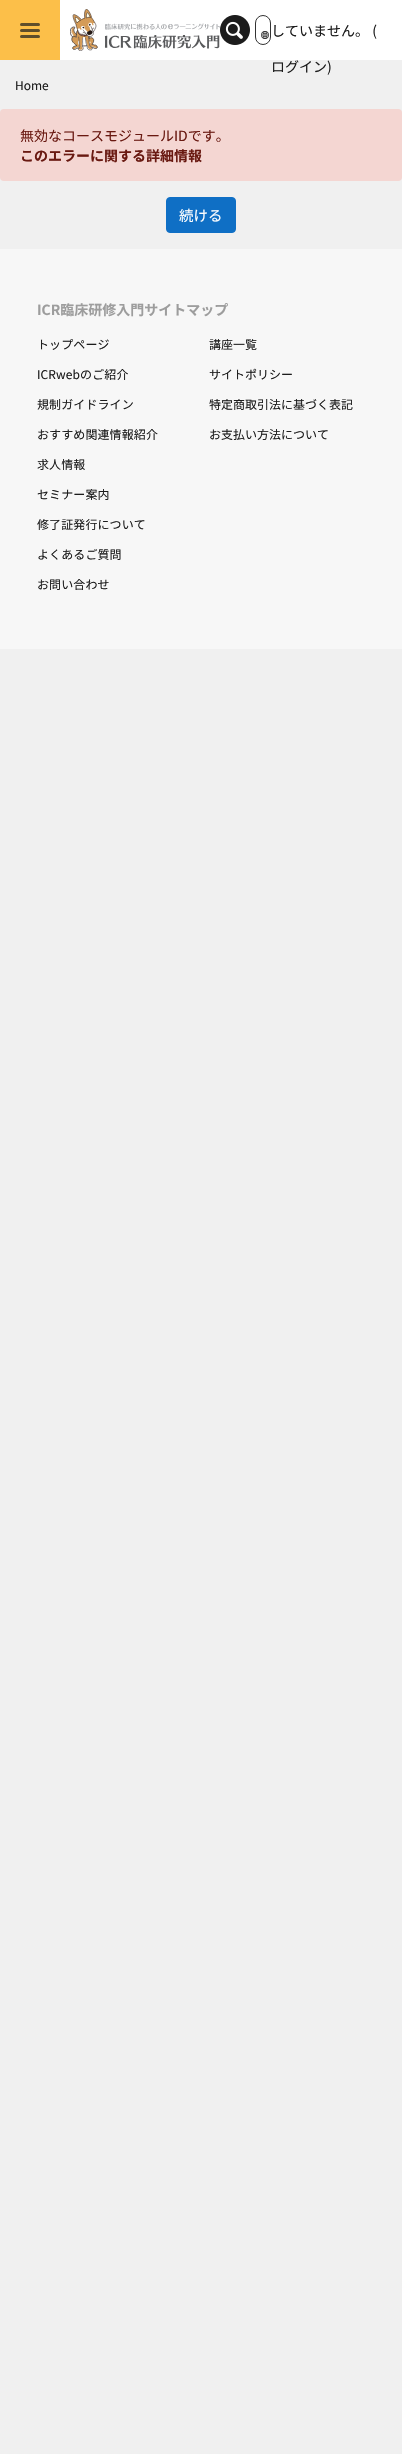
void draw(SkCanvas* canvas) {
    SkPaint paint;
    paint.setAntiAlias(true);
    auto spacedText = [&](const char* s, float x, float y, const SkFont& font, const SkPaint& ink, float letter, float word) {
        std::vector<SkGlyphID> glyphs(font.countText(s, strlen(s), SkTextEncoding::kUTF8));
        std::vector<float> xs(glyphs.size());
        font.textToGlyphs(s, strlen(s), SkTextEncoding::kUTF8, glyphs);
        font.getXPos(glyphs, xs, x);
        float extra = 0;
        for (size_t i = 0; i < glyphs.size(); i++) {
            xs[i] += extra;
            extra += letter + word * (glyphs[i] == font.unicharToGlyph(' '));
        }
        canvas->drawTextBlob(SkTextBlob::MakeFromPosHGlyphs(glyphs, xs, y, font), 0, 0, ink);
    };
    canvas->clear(0xFFF0F0F0);
    paint.setColor(0xFFFFFFFF);
    canvas->drawRect(SkRect::MakeXYWH(60, 0, 342, 60), paint);
    paint.setColor(0xFFFCBF49);
    canvas->drawRect(SkRect::MakeXYWH(0, 0, 60, 60), paint);
    paint.setColor(0xFF5F4D2A);
    canvas->drawRoundRect(SkRect::MakeXYWH(20, 29, 20, 3), 1.5f, 1.5f, paint);
    canvas->drawRoundRect(SkRect::MakeXYWH(20, 23, 20, 3), 1.5f, 1.5f, paint);
    canvas->drawRoundRect(SkRect::MakeXYWH(20, 35, 20, 3), 1.5f, 1.5f, paint);
    canvas->drawImageRect(SkImages::DeferredFromEncodedData(SkData::MakeFromFileName("img1.png")), SkRect::MakeXYWH(70, 9, 150, 42), SkSamplingOptions());
    canvas->drawImageRect(SkImages::DeferredFromEncodedData(SkData::MakeFromFileName("img2.png")), SkRect::MakeXYWH(220, 15, 30, 30), SkSamplingOptions());
    paint.setStyle(SkPaint::kStroke_Style);
    paint.setStrokeWidth(1);
    paint.setColor(0xFF333333);
    canvas->drawRoundRect(SkRect::MakeXYWH(255.5f, 15.5f, 15, 29), 7.5f, 7.5f, paint);
    canvas->drawImageRect(SkImages::DeferredFromEncodedData(SkData::MakeFromFileName("img3.png")), SkRect::MakeXYWH(261, 31, 8, 8), SkSamplingOptions());
    SkFont font1(fontMgr->matchFamilyStyle("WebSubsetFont", SkFontStyle::Normal()), 14);
    font1.setSubpixel(true);
    paint.setStyle(SkPaint::kFill_Style);
    paint.setColor(0xFF1C1C1C);
    canvas->drawString("していません。 (", 271, 36, font1, paint);
    canvas->drawString("ログイン", 271, 72, font1, paint);
    canvas->drawString(")", 327, 72, font1, paint);
    SkFont font2(fontMgr->matchFamilyStyle("WebSubsetFont", SkFontStyle::Normal()), 12);
    font2.setSubpixel(true);
    canvas->drawString("Home", 15, 90, font2, paint);
    paint.setColor(0xFFF4D6D2);
    canvas->drawRoundRect(SkRect::MakeXYWH(0, 109, 402, 72), 4, 4, paint);
    paint.setColor(0xFF691911);
    canvas->drawString("無効なコースモジュールIDです。", 20, 141, font1, paint);
    SkFont font3(fontMgr->matchFamilyStyle("WebSubsetFont", SkFontStyle::Bold()), 14);
    font3.setSubpixel(true);
    canvas->drawString("このエラーに関する詳細情報", 20, 161, font3, paint);
    paint.setColor(0xFF0F6FC5);
    canvas->drawRoundRect(SkRect::MakeXYWH(166.5f, 197.5f, 69, 35), 3.5f, 3.5f, paint);
    paint.setStyle(SkPaint::kStroke_Style);
    canvas->drawRoundRect(SkRect::MakeXYWH(166.5f, 197.5f, 69, 35), 3.5f, 3.5f, paint);
    SkFont font4(fontMgr->matchFamilyStyle("WebSubsetFont", SkFontStyle::Normal()), 14.5f);
    font4.setSubpixel(true);
    paint.setStyle(SkPaint::kFill_Style);
    paint.setColor(0xFFFFFFFF);
    canvas->drawString("続ける", 179, 221, font4, paint);
    paint.setColor(0xFFF7F7F7);
    canvas->drawRect(SkRect::MakeXYWH(0, 249, 402, 400), paint);
    paint.setColor(0xFF9D9D9D);
    canvas->drawString("ICR臨床研修入門サイトマップ", 37, 315, font3, paint);
    paint.setColor(0xFF1C1C1C);
    spacedText("トップページ", 37, 349, font2, paint, 0.1f, 0);
    spacedText("ICRwebのご紹介", 37, 379, font2, paint, 0.1f, 0);
    spacedText("規制ガイドライン", 37, 409, font2, paint, 0.1f, 0);
    spacedText("おすすめ関連情報紹介", 37, 439, font2, paint, 0.1f, 0);
    spacedText("求人情報", 37, 469, font2, paint, 0.1f, 0);
    spacedText("セミナー案内", 37, 499, font2, paint, 0.1f, 0);
    spacedText("修了証発行について", 37, 529, font2, paint, 0.1f, 0);
    spacedText("よくあるご質問", 37, 559, font2, paint, 0.1f, 0);
    spacedText("お問い合わせ", 37, 589, font2, paint, 0.1f, 0);
    canvas->drawString("講座一覧", 209, 349, font2, paint);
    canvas->drawString("サイトポリシー", 209, 379, font2, paint);
    canvas->drawString("特定商取引法に基づく表記", 209, 409, font2, paint);
    canvas->drawString("お支払い方法について", 209, 439, font2, paint);
}
